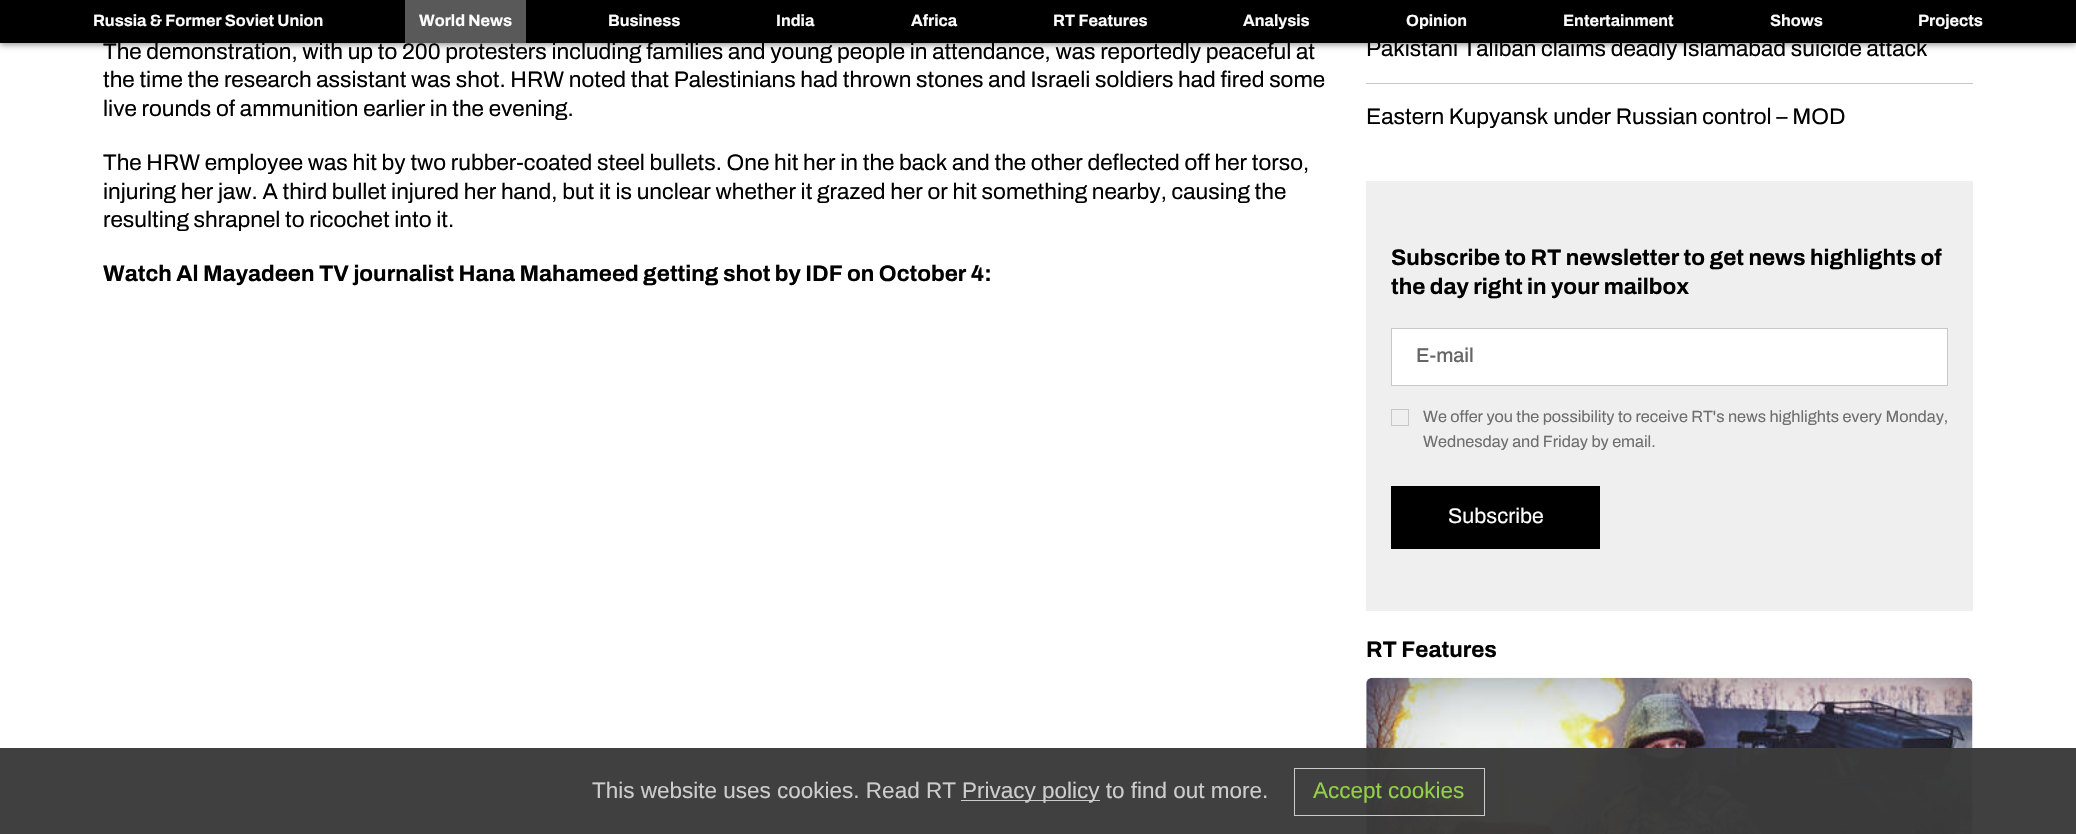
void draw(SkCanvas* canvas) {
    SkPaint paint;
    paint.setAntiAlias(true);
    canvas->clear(0xFFFFFFFF);
    paint.setColor(0x66000000);
    paint.setMaskFilter(SkMaskFilter::MakeBlur(kNormal_SkBlurStyle, 3));
    canvas->drawRect(SkRect::MakeXYWH(0, 3, 2076, 42), paint);
    paint.setMaskFilter(nullptr);
    paint.setColor(0xFF000000);
    canvas->drawRect(SkRect::MakeXYWH(0, 0, 2076, 43), paint);
    SkFont font1(fontMgr->matchFamilyStyle("Archivo", SkFontStyle::Bold()), 16.25f);
    font1.setSubpixel(true);
    paint.setColor(0xFFFCFCFC);
    canvas->drawString("Russia & Former Soviet Union", 93, 26, font1, paint);
    SkFont font2(fontMgr->matchFamilyStyle("Archivo", SkFontStyle::Normal()), 22.5f);
    font2.setSubpixel(true);
    paint.setColor(0xFF000000);
    canvas->drawString("The demonstration, with up to 200 protesters including families and young people in attendance, was reportedly peaceful at", 103, 59, font2, paint);
    paint.setColor(0xFF595959);
    canvas->drawRect(SkRect::MakeXYWH(405, 0, 121, 43), paint);
    paint.setColor(0xFFFCFCFC);
    canvas->drawString("World News", 419, 26, font1, paint);
    canvas->drawString("Business", 608, 26, font1, paint);
    canvas->drawString("India", 776, 26, font1, paint);
    canvas->drawString("Africa", 911, 26, font1, paint);
    canvas->drawString("RT Features", 1053, 26, font1, paint);
    canvas->drawString("Analysis", 1243, 26, font1, paint);
    canvas->drawString("Opinion", 1406, 26, font1, paint);
    canvas->drawString("Entertainment", 1563, 26, font1, paint);
    canvas->drawString("Shows", 1770, 26, font1, paint);
    canvas->drawString("Projects", 1918, 26, font1, paint);
    paint.setColor(0xFF000000);
    canvas->drawString("the time the research assistant was shot. HRW noted that Palestinians had thrown stones and Israeli soldiers had fired some", 103, 87, font2, paint);
    canvas->drawString("live rounds of ammunition earlier in the evening.", 103, 116, font2, paint);
    canvas->drawString("The HRW employee was hit by two rubber-coated steel bullets. One hit her in the back and the other deflected off her torso,", 103, 170, font2, paint);
    canvas->drawString("injuring her jaw. A third bullet injured her hand, but it is unclear whether it grazed her or hit something nearby, causing the", 103, 199, font2, paint);
    canvas->drawString("resulting shrapnel to ricochet into it.", 103, 227, font2, paint);
    SkFont font3(fontMgr->matchFamilyStyle("Archivo", SkFontStyle::Bold()), 22.5f);
    font3.setSubpixel(true);
    canvas->drawString("Watch Al Mayadeen TV journalist Hana Mahameed getting shot by IDF on October 4:", 103, 281, font3, paint);
    paint.setColor(0xFFC7C7C7);
    canvas->drawRect(SkRect::MakeXYWH(1366, 83, 607, 1), paint);
    paint.setColor(0xFF000000);
    canvas->drawString("Pakistani Taliban claims deadly Islamabad suicide attack", 1366, 56, font2, paint);
    canvas->drawString("Eastern Kupyansk under Russian control – MOD", 1366, 124, font2, paint);
    paint.setColor(0xFFEFEFEF);
    canvas->drawRect(SkRect::MakeXYWH(1366, 181, 607, 430), paint);
    paint.setColor(0xFF000000);
    canvas->drawString("Subscribe to RT newsletter to get news highlights of", 1391, 265, font3, paint);
    canvas->drawString("the day right in your mailbox", 1391, 294, font3, paint);
    paint.setColor(0xFFFFFFFF);
    canvas->drawRect(SkRect::MakeXYWH(1391.5f, 328.5f, 556, 57), paint);
    paint.setStyle(SkPaint::kStroke_Style);
    paint.setStrokeWidth(1);
    paint.setColor(0xFFC7C7C7);
    canvas->drawRect(SkRect::MakeXYWH(1391.5f, 328.5f, 556, 57), paint);
    SkFont font4(fontMgr->matchFamilyStyle("Archivo", SkFontStyle(500, SkFontStyle::kNormal_Width, SkFontStyle::kUpright_Slant)), 20);
    font4.setSubpixel(true);
    paint.setStyle(SkPaint::kFill_Style);
    paint.setColor(0xFF666666);
    canvas->drawString("E-mail", 1416, 362, font4, paint);
    paint.setStyle(SkPaint::kStroke_Style);
    paint.setColor(0xFFC7C7C7);
    canvas->drawRect(SkRect::MakeXYWH(1391.5f, 409.5f, 17, 16), paint);
    SkFont font5(fontMgr->matchFamilyStyle("Archivo", SkFontStyle::Normal()), 16.25f);
    font5.setSubpixel(true);
    paint.setStyle(SkPaint::kFill_Style);
    paint.setColor(0xFF6E6E6E);
    canvas->drawString("We offer you the possibility to receive RT's news highlights every Monday,", 1423, 422, font5, paint);
    canvas->drawString("Wednesday and Friday by email.", 1423, 447, font5, paint);
    paint.setColor(0xFF000000);
    canvas->drawRect(SkRect::MakeXYWH(1391, 486, 209, 63), paint);
    SkFont font6(fontMgr->matchFamilyStyle("Archivo", SkFontStyle::Normal()), 21.25f);
    font6.setSubpixel(true);
    paint.setColor(0xFFFCFCFC);
    canvas->drawString("Subscribe", 1448, 523, font6, paint);
    paint.setColor(0xFF000000);
    canvas->drawString("RT Features", 1366, 657, font3, paint);
    canvas->drawImageRect(SkImages::DeferredFromEncodedData(SkData::MakeFromFileName("img1.png")), SkRect::MakeXYWH(1366, 677, 607, 157), SkSamplingOptions());
    paint.setColor(0xF73A3A3A);
    canvas->drawRect(SkRect::MakeXYWH(0, 748, 2076, 86), paint);
    SkFont font7(fontMgr->matchFamilyStyle("Liberation Sans", SkFontStyle::Normal()), 22.5f);
    font7.setSubpixel(true);
    paint.setColor(0xFFCDCDCD);
    canvas->drawString("This website uses cookies. Read RT", 592, 798, font7, paint);
    paint.setColor(0xF7D1D1D1);
    canvas->drawRect(SkRect::MakeXYWH(961, 800, 139, 1), paint);
    paint.setColor(0xFFCDCDCD);
    canvas->drawString("Privacy policy to find out more.", 962, 798, font7, paint);
    paint.setStyle(SkPaint::kStroke_Style);
    paint.setColor(0xF7D1D1D1);
    canvas->drawRect(SkRect::MakeXYWH(1294.5f, 768.5f, 190, 47), paint);
    paint.setStyle(SkPaint::kFill_Style);
    paint.setColor(0xFF93D047);
    canvas->drawString("Accept cookies", 1313, 798, font7, paint);
}
